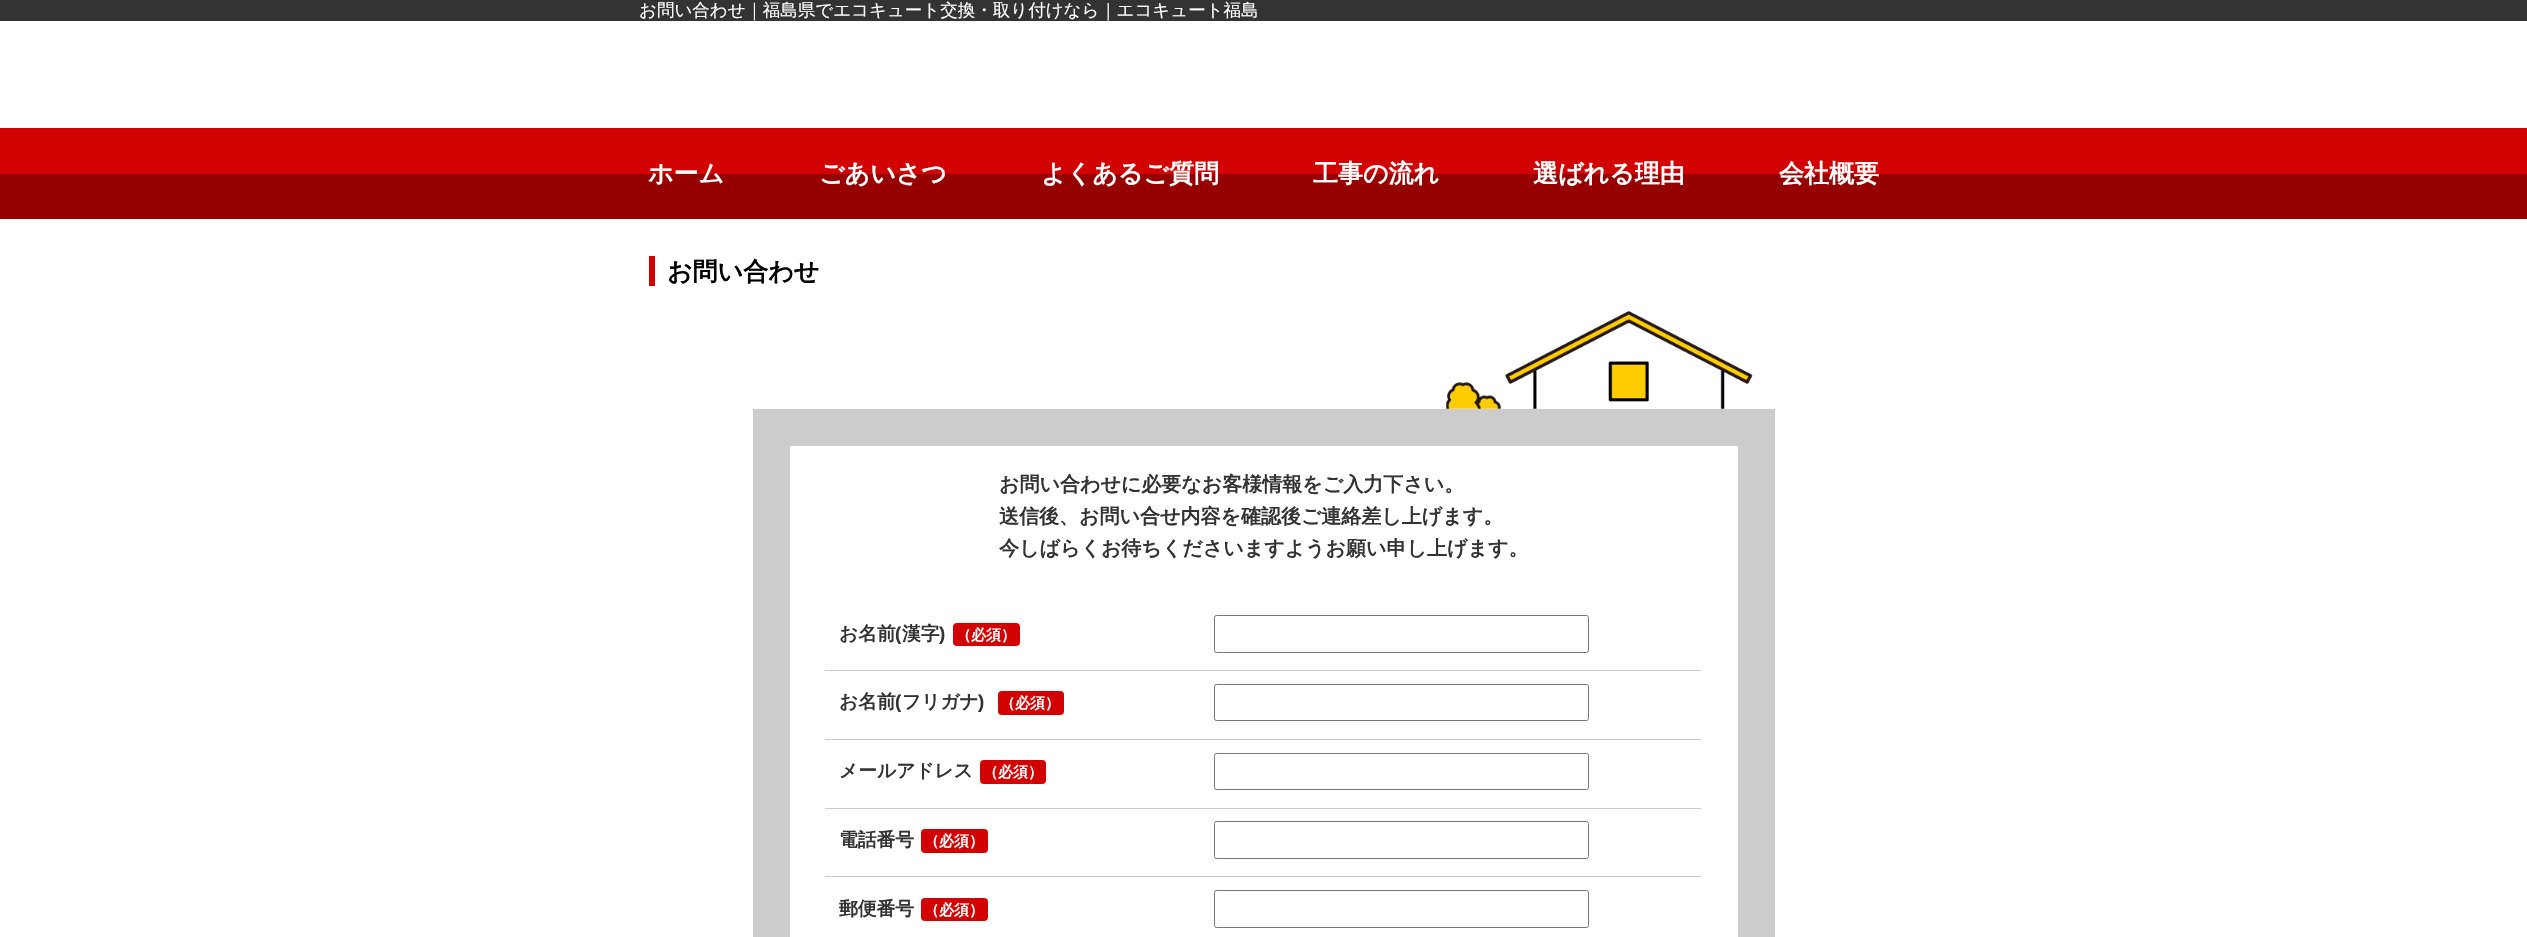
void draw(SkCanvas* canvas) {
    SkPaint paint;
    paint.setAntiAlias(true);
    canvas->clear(0xFFFFFFFF);
    paint.setColor(0xFF333333);
    canvas->drawRect(SkRect::MakeXYWH(0, 0, 2527, 21), paint);
    SkFont font1(fontMgr->matchFamilyStyle("WenQuanYi Zen Hei", SkFontStyle(500, SkFontStyle::kNormal_Width, SkFontStyle::kUpright_Slant)), 17.5f);
    font1.setSubpixel(true);
    paint.setColor(0xFFFFFFFF);
    canvas->drawString("お問い合わせ｜福島県でエコキュート交換・取り付けなら｜エコキュート福島", 639, 16, font1, paint);
    paint.setColor(0xFFD30202);
    canvas->drawRect(SkRect::MakeXYWH(0, 128, 2527, 46), paint);
    paint.setColor(0xFF960000);
    canvas->drawRect(SkRect::MakeXYWH(0, 174, 2527, 45), paint);
    SkFont font2(fontMgr->matchFamilyStyle("WenQuanYi Zen Hei", SkFontStyle::Bold()), 25);
    font2.setSubpixel(true);
    paint.setColor(0xFFFFFFFF);
    canvas->drawString("ホーム", 648, 182, font2, paint);
    canvas->drawString("ごあいさつ", 819, 182, font2, paint);
    canvas->drawString("よくあるご質問", 1041, 182, font2, paint);
    canvas->drawString("工事の流れ", 1313, 182, font2, paint);
    canvas->drawString("選ばれる理由", 1533, 182, font2, paint);
    canvas->drawString("会社概要", 1779, 182, font2, paint);
    paint.setColor(0xFFD30202);
    canvas->drawRect(SkRect::MakeXYWH(649, 256, 6, 30), paint);
    paint.setColor(0xFF000000);
    canvas->drawString("お問い合わせ", 667, 280, font2, paint);
    canvas->drawImageRect(SkImages::DeferredFromEncodedData(SkData::MakeFromFileName("img1.png")), SkRect::MakeXYWH(1446, 311, 307, 98), SkSamplingOptions());
    paint.setColor(0xFFCCCCCC);
    canvas->drawRect(SkRect::MakeXYWH(753, 409, 1022, 528), paint);
    paint.setColor(0xFFFFFFFF);
    canvas->drawRect(SkRect::MakeXYWH(790, 446, 948, 491), paint);
    SkFont font3(fontMgr->matchFamilyStyle("WenQuanYi Zen Hei", SkFontStyle::Bold()), 20);
    font3.setSubpixel(true);
    paint.setColor(0xFF333333);
    canvas->drawString("お問い合わせに必要なお客様情報をご入力下さい。", 999, 491, font3, paint);
    canvas->drawString("送信後、お問い合せ内容を確認後ご連絡差し上げます。", 999, 523, font3, paint);
    canvas->drawString("今しばらくお待ちくださいますようお願い申し上げます。", 999, 555, font3, paint);
    paint.setColor(0xFFCCCCCC);
    canvas->drawRect(SkRect::MakeXYWH(825, 670, 876, 1), paint);
    paint.setStyle(SkPaint::kStroke_Style);
    paint.setStrokeWidth(1);
    paint.setColor(0xFF767676);
    canvas->drawRoundRect(SkRect::MakeXYWH(1214.5f, 615.5f, 374, 37), 2, 2, paint);
    SkFont font4(fontMgr->matchFamilyStyle("WenQuanYi Zen Hei", SkFontStyle::Bold()), 18.75f);
    font4.setSubpixel(true);
    paint.setStyle(SkPaint::kFill_Style);
    paint.setColor(0xFF333333);
    canvas->drawString("お名前", 839, 640, font4, paint);
    SkFont font5(fontMgr->matchFamilyStyle("Liberation Sans", SkFontStyle::Bold()), 18.75f);
    font5.setSubpixel(true);
    canvas->drawString("(", 895, 640, font5, paint);
    canvas->drawString("漢字", 902, 640, font4, paint);
    canvas->drawString(")", 939, 640, font5, paint);
    paint.setColor(0xFFD30202);
    canvas->drawRoundRect(SkRect::MakeXYWH(953, 623, 67, 23), 4, 4, paint);
    SkFont font6(fontMgr->matchFamilyStyle("WenQuanYi Zen Hei", SkFontStyle::Bold()), 15);
    font6.setSubpixel(true);
    paint.setColor(0xFFFFFFFF);
    canvas->drawString("（必須）", 956, 640, font6, paint);
    paint.setColor(0xFFCCCCCC);
    canvas->drawRect(SkRect::MakeXYWH(825, 739, 876, 1), paint);
    paint.setStyle(SkPaint::kStroke_Style);
    paint.setColor(0xFF767676);
    canvas->drawRoundRect(SkRect::MakeXYWH(1214.5f, 684.5f, 374, 36), 2, 2, paint);
    paint.setStyle(SkPaint::kFill_Style);
    paint.setColor(0xFF333333);
    canvas->drawString("お名前", 839, 708, font4, paint);
    canvas->drawString("(", 895, 708, font5, paint);
    canvas->drawString("フリガナ", 902, 708, font4, paint);
    canvas->drawString(")", 978, 708, font5, paint);
    paint.setColor(0xFFD30202);
    canvas->drawRoundRect(SkRect::MakeXYWH(998, 691, 66, 24), 4, 4, paint);
    paint.setColor(0xFFFFFFFF);
    canvas->drawString("（必須）", 1000, 708, font6, paint);
    paint.setColor(0xFFCCCCCC);
    canvas->drawRect(SkRect::MakeXYWH(825, 808, 876, 1), paint);
    paint.setStyle(SkPaint::kStroke_Style);
    paint.setColor(0xFF767676);
    canvas->drawRoundRect(SkRect::MakeXYWH(1214.5f, 753.5f, 374, 36), 2, 2, paint);
    paint.setStyle(SkPaint::kFill_Style);
    paint.setColor(0xFF333333);
    canvas->drawString("メールアドレス", 839, 777, font4, paint);
    paint.setColor(0xFFD30202);
    canvas->drawRoundRect(SkRect::MakeXYWH(980, 760, 66, 24), 4, 4, paint);
    paint.setColor(0xFFFFFFFF);
    canvas->drawString("（必須）", 983, 777, font6, paint);
    paint.setColor(0xFFCCCCCC);
    canvas->drawRect(SkRect::MakeXYWH(825, 876, 876, 1), paint);
    paint.setStyle(SkPaint::kStroke_Style);
    paint.setColor(0xFF767676);
    canvas->drawRoundRect(SkRect::MakeXYWH(1214.5f, 821.5f, 374, 37), 2, 2, paint);
    paint.setStyle(SkPaint::kFill_Style);
    paint.setColor(0xFF333333);
    canvas->drawString("電話番号", 839, 846, font4, paint);
    paint.setColor(0xFFD30202);
    canvas->drawRoundRect(SkRect::MakeXYWH(921, 829, 67, 24), 4, 4, paint);
    paint.setColor(0xFFFFFFFF);
    canvas->drawString("（必須）", 924, 846, font6, paint);
    paint.setColor(0xFF333333);
    canvas->drawString("郵便番号", 839, 915, font4, paint);
    paint.setColor(0xFFD30202);
    canvas->drawRoundRect(SkRect::MakeXYWH(921, 898, 67, 23), 4, 4, paint);
    paint.setColor(0xFFFFFFFF);
    canvas->drawString("（必須）", 924, 915, font6, paint);
    paint.setStyle(SkPaint::kStroke_Style);
    paint.setColor(0xFF767676);
    canvas->drawRoundRect(SkRect::MakeXYWH(1214.5f, 890.5f, 374, 37), 2, 2, paint);
}
